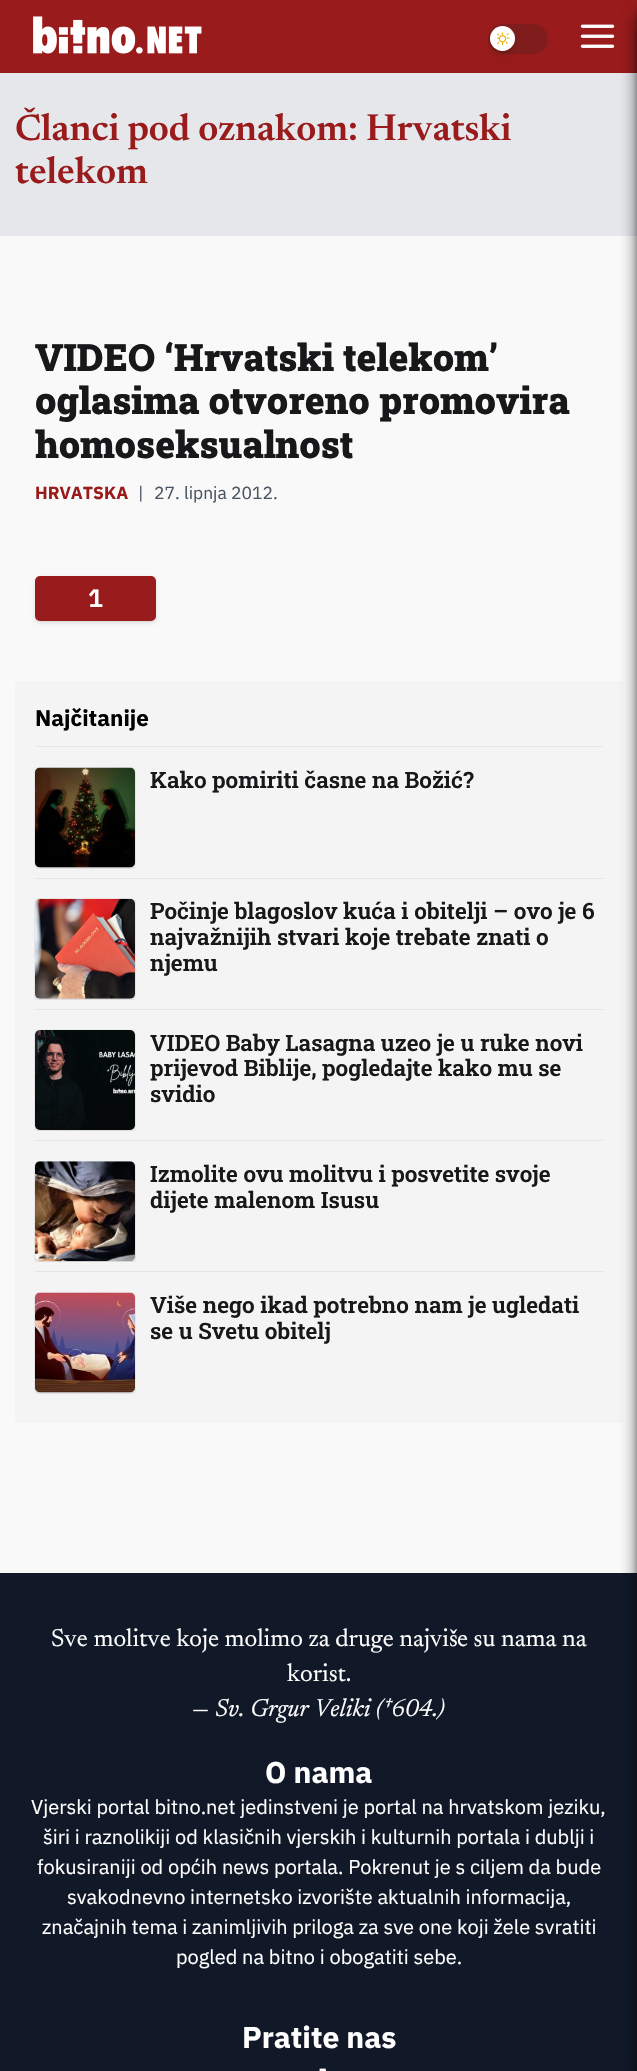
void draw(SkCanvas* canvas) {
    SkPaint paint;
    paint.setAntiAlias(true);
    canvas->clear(0xFFF9F9F9);
    paint.setColor(0xFF991B1B);
    canvas->drawRect(SkRect::MakeXYWH(0, 0, 637, 73), paint);
    canvas->drawImageRect(SkImages::DeferredFromEncodedData(SkData::MakeFromFileName("img1.png")), SkRect::MakeXYWH(33, 16, 169, 38), SkSamplingOptions());
    paint.setColor(0xFF7F1D1D);
    canvas->drawRoundRect(SkRect::MakeXYWH(488, 24, 60, 30), 15, 15, paint);
    paint.setColor(0x1A000000);
    paint.setMaskFilter(SkMaskFilter::MakeBlur(kNormal_SkBlurStyle, 2.5f));
    canvas->drawRoundRect(SkRect::MakeXYWH(493, 31, 20, 20), 10, 10, paint);
    paint.setMaskFilter(nullptr);
    paint.setMaskFilter(SkMaskFilter::MakeBlur(kNormal_SkBlurStyle, 4));
    canvas->drawRoundRect(SkRect::MakeXYWH(491, 33, 23, 22), 11, 11, paint);
    paint.setMaskFilter(nullptr);
    paint.setColor(0xFFFFFFFF);
    canvas->drawCircle(502.5f, 38.5f, 12.5f, paint);
    canvas->drawImageRect(SkImages::DeferredFromEncodedData(SkData::MakeFromFileName("img2.png")), SkRect::MakeXYWH(496, 32, 14, 13), SkSamplingOptions());
    canvas->drawImageRect(SkImages::DeferredFromEncodedData(SkData::MakeFromFileName("img3.png")), SkRect::MakeXYWH(580, 24, 35, 24), SkSamplingOptions());
    paint.setColor(0xFFE5E7EB);
    canvas->drawRect(SkRect::MakeXYWH(0, 73, 637, 163), paint);
    paint.setColor(0xFF111827);
    canvas->drawRect(SkRect::MakeXYWH(0, 1573, 637, 498), paint);
    paint.setColor(0xFF000000);
    paint.setMaskFilter(SkMaskFilter::MakeBlur(kNormal_SkBlurStyle, 4));
    canvas->drawRect(SkRect::MakeXYWH(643, 10, 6, 2061), paint);
    paint.setMaskFilter(nullptr);
    paint.setColor(0xFFF4F4F5);
    canvas->drawRect(SkRect::MakeXYWH(15, 681, 608, 742), paint);
    paint.setColor(0xFF000000);
    paint.setMaskFilter(SkMaskFilter::MakeBlur(kNormal_SkBlurStyle, 9.5f));
    canvas->drawRect(SkRect::MakeXYWH(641, 16, 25, 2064), paint);
    paint.setMaskFilter(nullptr);
    SkFont font1(fontMgr->matchFamilyStyle("Newsreader", SkFontStyle(600, SkFontStyle::kNormal_Width, SkFontStyle::kUpright_Slant)), 37.5f);
    font1.setSubpixel(true);
    paint.setColor(0xFF991B1B);
    canvas->drawString("Č", 15, 140, font1, paint);
    SkFont font2(fontMgr->matchFamilyStyle("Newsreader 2", SkFontStyle(600, SkFontStyle::kNormal_Width, SkFontStyle::kUpright_Slant)), 37.5f);
    font2.setSubpixel(true);
    canvas->drawString("lanci pod oznakom: Hrvatski", 41, 140, font2, paint);
    canvas->drawString("telekom", 15, 183, font2, paint);
    SkFont font3(fontMgr->matchFamilyStyle("Roboto Slab", SkFontStyle(900, SkFontStyle::kNormal_Width, SkFontStyle::kUpright_Slant)), 37.5f);
    font3.setSubpixel(true);
    paint.setColor(0xFF18181B);
    canvas->drawString("VIDEO ‘Hrvatski telekom’", 35, 371, font3, paint);
    canvas->drawString("oglasima otvoreno promovira", 35, 414, font3, paint);
    canvas->drawString("homoseksualnost", 35, 458, font3, paint);
    SkFont font4(fontMgr->matchFamilyStyle("IBM Plex Sans", SkFontStyle::Bold()), 17.5f);
    font4.setSubpixel(true);
    paint.setColor(0xFF991B1B);
    canvas->drawString("HRVATSKA", 35, 499, font4, paint);
    SkFont font5(fontMgr->matchFamilyStyle("IBM Plex Sans", SkFontStyle::Normal()), 17.5f);
    font5.setSubpixel(true);
    paint.setColor(0xFF4B5563);
    canvas->drawString("|", 138, 499, font5, paint);
    canvas->drawString("27. lipnja 2012.", 154, 499, font5, paint);
    paint.setColor(0x1A000000);
    paint.setMaskFilter(SkMaskFilter::MakeBlur(kNormal_SkBlurStyle, 1));
    canvas->drawRoundRect(SkRect::MakeXYWH(36, 579, 119, 42), 4, 4, paint);
    paint.setMaskFilter(nullptr);
    paint.setMaskFilter(SkMaskFilter::MakeBlur(kNormal_SkBlurStyle, 2));
    canvas->drawRoundRect(SkRect::MakeXYWH(35, 578, 121, 45), 5, 5, paint);
    paint.setMaskFilter(nullptr);
    paint.setColor(0xFF991B1B);
    canvas->drawRoundRect(SkRect::MakeXYWH(35, 576, 121, 45), 5, 5, paint);
    SkFont font6(fontMgr->matchFamilyStyle("IBM Plex Sans", SkFontStyle(600, SkFontStyle::kNormal_Width, SkFontStyle::kUpright_Slant)), 25);
    font6.setSubpixel(true);
    paint.setColor(0xFFFFFFFF);
    canvas->drawString("1", 88, 607, font6, paint);
    paint.setColor(0xFFE5E7EB);
    canvas->drawRect(SkRect::MakeXYWH(35, 746, 568, 1), paint);
    SkFont font7(fontMgr->matchFamilyStyle("IBM Plex Sans", SkFontStyle::Bold()), 22.5f);
    font7.setSubpixel(true);
    paint.setColor(0xFF000000);
    canvas->drawString("Najčitanije", 35, 726, font7, paint);
    paint.setColor(0xFFE4E4E7);
    canvas->drawRect(SkRect::MakeXYWH(35, 878, 568, 1), paint);
    canvas->drawImageRect(SkImages::DeferredFromEncodedData(SkData::MakeFromFileName("img4.png")), SkRect::MakeXYWH(34, 767, 102, 102), SkSamplingOptions());
    SkFont font8(fontMgr->matchFamilyStyle("Roboto Slab", SkFontStyle(600, SkFontStyle::kNormal_Width, SkFontStyle::kUpright_Slant)), 22.5f);
    font8.setSubpixel(true);
    paint.setColor(0xFF18181B);
    canvas->drawString("Kako pomiriti časne na Božić?", 150, 788, font8, paint);
    paint.setColor(0xFFE4E4E7);
    canvas->drawRect(SkRect::MakeXYWH(35, 1009, 568, 1), paint);
    canvas->drawImageRect(SkImages::DeferredFromEncodedData(SkData::MakeFromFileName("img5.png")), SkRect::MakeXYWH(34, 898, 102, 102), SkSamplingOptions());
    paint.setColor(0xFF18181B);
    canvas->drawString("Počinje blagoslov kuća i obitelji – ovo je 6", 150, 919, font8, paint);
    canvas->drawString("najvažnijih stvari koje trebate znati o", 150, 945, font8, paint);
    canvas->drawString("njemu", 150, 971, font8, paint);
    paint.setColor(0xFFE4E4E7);
    canvas->drawRect(SkRect::MakeXYWH(35, 1140, 568, 1), paint);
    canvas->drawImageRect(SkImages::DeferredFromEncodedData(SkData::MakeFromFileName("img6.png")), SkRect::MakeXYWH(34, 1029, 102, 102), SkSamplingOptions());
    paint.setColor(0xFF18181B);
    canvas->drawString("VIDEO Baby Lasagna uzeo je u ruke novi", 150, 1051, font8, paint);
    canvas->drawString("prijevod Biblije, pogledajte kako mu se", 150, 1076, font8, paint);
    canvas->drawString("svidio", 150, 1102, font8, paint);
    paint.setColor(0xFFE4E4E7);
    canvas->drawRect(SkRect::MakeXYWH(35, 1271, 568, 1), paint);
    canvas->drawImageRect(SkImages::DeferredFromEncodedData(SkData::MakeFromFileName("img7.png")), SkRect::MakeXYWH(34, 1161, 102, 101), SkSamplingOptions());
    paint.setColor(0xFF18181B);
    canvas->drawString("Izmolite ovu molitvu i posvetite svoje", 150, 1182, font8, paint);
    canvas->drawString("dijete malenom Isusu", 150, 1208, font8, paint);
    canvas->drawImageRect(SkImages::DeferredFromEncodedData(SkData::MakeFromFileName("img8.png")), SkRect::MakeXYWH(34, 1292, 102, 102), SkSamplingOptions());
    canvas->drawString("Više nego ikad potrebno nam je ugledati", 150, 1313, font8, paint);
    canvas->drawString("se u Svetu obitelj", 150, 1339, font8, paint);
    SkFont font9(fontMgr->matchFamilyStyle("Newsreader", SkFontStyle::Normal()), 25);
    font9.setSubpixel(true);
    paint.setColor(0xFFFFFFFF);
    canvas->drawString("Sve molitve koje molimo za druge najvi", 51, 1646, font9, paint);
    SkFont font10(fontMgr->matchFamilyStyle("Newsreader 2", SkFontStyle::Normal()), 25);
    font10.setSubpixel(true);
    canvas->drawString("š", 449, 1646, font10, paint);
    canvas->drawString("e su nama na", 457, 1646, font9, paint);
    canvas->drawString("korist.", 287, 1681, font9, paint);
    canvas->drawString("—", 192, 1716, font9, paint);
    SkFont font11(fontMgr->matchFamilyStyle("Newsreader", SkFontStyle::Italic()), 25);
    font11.setSubpixel(true);
    canvas->drawString("Sv. Grgur Veliki (†604.)", 215, 1716, font11, paint);
    SkFont font12(fontMgr->matchFamilyStyle("IBM Plex Sans", SkFontStyle::Bold()), 30);
    font12.setSubpixel(true);
    canvas->drawString("O nama", 265, 1783, font12, paint);
    SkFont font13(fontMgr->matchFamilyStyle("IBM Plex Sans", SkFontStyle::Normal()), 20);
    font13.setSubpixel(true);
    canvas->drawString("Vjerski portal bitno.net jedinstveni je portal na hrvatskom jeziku,", 31, 1814, font13, paint);
    canvas->drawString("širi i raznolikiji od klasičnih vjerskih i kulturnih portala i dublji i", 43, 1844, font13, paint);
    canvas->drawString("fokusiraniji od općih news portala. Pokrenut je s ciljem da bude", 37, 1874, font13, paint);
    canvas->drawString("svakodnevno internetsko izvorište aktualnih informacija,", 67, 1904, font13, paint);
    canvas->drawString("značajnih tema i zanimljivih priloga za sve one koji žele svratiti", 42, 1934, font13, paint);
    canvas->drawString("pogled na bitno i obogatiti sebe.", 176, 1964, font13, paint);
    canvas->drawString("Pratite nas", 242, 2048, font12, paint);
    canvas->drawImageRect(SkImages::DeferredFromEncodedData(SkData::MakeFromFileName("img9.png")), SkRect::MakeXYWH(319, 2068, 7, 3), SkSamplingOptions());
}
